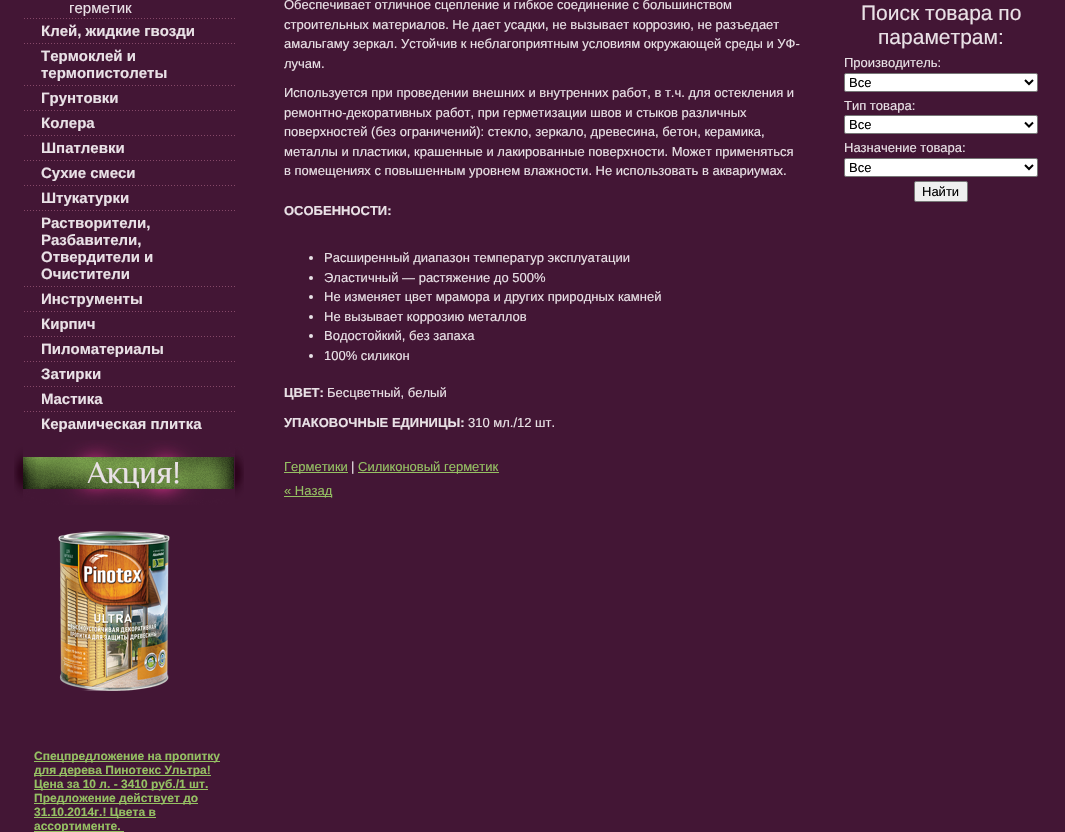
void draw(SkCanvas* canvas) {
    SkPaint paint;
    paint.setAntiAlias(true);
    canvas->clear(0xFF431635);
    SkFont font1(fontMgr->matchFamilyStyle("Liberation Sans", SkFontStyle::Normal()), 15);
    font1.setSubpixel(true);
    paint.setColor(0xFFE9E1E6);
    canvas->drawString("герметик", 69, 13, font1, paint);
    canvas->drawImageRect(SkImages::DeferredFromEncodedData(SkData::MakeFromFileName("img1.png")), SkRect::MakeXYWH(24, 18, 211, 1), SkSamplingOptions());
    SkFont font2(fontMgr->matchFamilyStyle("Liberation Sans", SkFontStyle::Bold()), 15);
    font2.setSubpixel(true);
    canvas->drawString("Клей, жидкие гвозди", 41, 36, font2, paint);
    canvas->drawImageRect(SkImages::DeferredFromEncodedData(SkData::MakeFromFileName("img1.png")), SkRect::MakeXYWH(24, 43, 211, 1), SkSamplingOptions());
    canvas->drawString("Термоклей и", 41, 61, font2, paint);
    canvas->drawString("термопистолеты", 41, 78, font2, paint);
    canvas->drawImageRect(SkImages::DeferredFromEncodedData(SkData::MakeFromFileName("img1.png")), SkRect::MakeXYWH(24, 85, 211, 1), SkSamplingOptions());
    canvas->drawString("Грунтовки", 41, 103, font2, paint);
    canvas->drawImageRect(SkImages::DeferredFromEncodedData(SkData::MakeFromFileName("img1.png")), SkRect::MakeXYWH(24, 110, 211, 1), SkSamplingOptions());
    canvas->drawString("Колера", 41, 128, font2, paint);
    canvas->drawImageRect(SkImages::DeferredFromEncodedData(SkData::MakeFromFileName("img1.png")), SkRect::MakeXYWH(24, 135, 211, 1), SkSamplingOptions());
    canvas->drawString("Шпатлевки", 41, 153, font2, paint);
    canvas->drawImageRect(SkImages::DeferredFromEncodedData(SkData::MakeFromFileName("img1.png")), SkRect::MakeXYWH(24, 160, 211, 1), SkSamplingOptions());
    canvas->drawString("Сухие смеси", 41, 178, font2, paint);
    canvas->drawImageRect(SkImages::DeferredFromEncodedData(SkData::MakeFromFileName("img1.png")), SkRect::MakeXYWH(24, 185, 211, 1), SkSamplingOptions());
    canvas->drawString("Штукатурки", 41, 203, font2, paint);
    canvas->drawImageRect(SkImages::DeferredFromEncodedData(SkData::MakeFromFileName("img1.png")), SkRect::MakeXYWH(24, 210, 211, 1), SkSamplingOptions());
    canvas->drawString("Растворители,", 41, 228, font2, paint);
    canvas->drawString("Разбавители,", 41, 245, font2, paint);
    canvas->drawString("Отвердители и", 41, 262, font2, paint);
    canvas->drawString("Очистители", 41, 279, font2, paint);
    canvas->drawImageRect(SkImages::DeferredFromEncodedData(SkData::MakeFromFileName("img1.png")), SkRect::MakeXYWH(24, 286, 211, 1), SkSamplingOptions());
    canvas->drawString("Инструменты", 41, 304, font2, paint);
    canvas->drawImageRect(SkImages::DeferredFromEncodedData(SkData::MakeFromFileName("img1.png")), SkRect::MakeXYWH(24, 311, 211, 1), SkSamplingOptions());
    canvas->drawString("Кирпич", 41, 329, font2, paint);
    canvas->drawImageRect(SkImages::DeferredFromEncodedData(SkData::MakeFromFileName("img1.png")), SkRect::MakeXYWH(24, 336, 211, 1), SkSamplingOptions());
    canvas->drawString("Пиломатериалы", 41, 354, font2, paint);
    canvas->drawImageRect(SkImages::DeferredFromEncodedData(SkData::MakeFromFileName("img1.png")), SkRect::MakeXYWH(24, 361, 211, 1), SkSamplingOptions());
    canvas->drawString("Затирки", 41, 379, font2, paint);
    canvas->drawImageRect(SkImages::DeferredFromEncodedData(SkData::MakeFromFileName("img1.png")), SkRect::MakeXYWH(24, 386, 211, 1), SkSamplingOptions());
    canvas->drawString("Мастика", 41, 404, font2, paint);
    canvas->drawImageRect(SkImages::DeferredFromEncodedData(SkData::MakeFromFileName("img1.png")), SkRect::MakeXYWH(24, 411, 211, 1), SkSamplingOptions());
    canvas->drawString("Керамическая плитка", 41, 429, font2, paint);
    canvas->drawImageRect(SkImages::DeferredFromEncodedData(SkData::MakeFromFileName("img2.png")), SkRect::MakeXYWH(14, 440, 230, 65), SkSamplingOptions());
    SkFont font3(fontMgr->matchFamilyStyle("Philosopher", SkFontStyle::Normal()), 32);
    font3.setSubpixel(true);
    canvas->drawString("Акция!", 87, 483, font3, paint);
    canvas->drawImageRect(SkImages::DeferredFromEncodedData(SkData::MakeFromFileName("img3.png")), SkRect::MakeXYWH(58, 531, 112, 160), SkSamplingOptions());
    paint.setColor(0xFF95C063);
    canvas->drawRect(SkRect::MakeXYWH(34, 761, 186, 1), paint);
    SkFont font4(fontMgr->matchFamilyStyle("Liberation Sans", SkFontStyle::Bold()), 12);
    font4.setSubpixel(true);
    canvas->drawString("Спецпредложение на пропитку", 34, 760, font4, paint);
    canvas->drawRect(SkRect::MakeXYWH(34, 775, 177, 1), paint);
    canvas->drawString("для дерева Пинотекс Ультра!", 34, 774, font4, paint);
    canvas->drawRect(SkRect::MakeXYWH(34, 789, 174, 1), paint);
    canvas->drawString("Цена за 10 л. - 3410 руб./1 шт.", 34, 788, font4, paint);
    canvas->drawRect(SkRect::MakeXYWH(34, 803, 164, 1), paint);
    canvas->drawString("Предложение действует до", 34, 802, font4, paint);
    canvas->drawRect(SkRect::MakeXYWH(34, 817, 122, 1), paint);
    canvas->drawString("31.10.2014г.! Цвета в", 34, 816, font4, paint);
    canvas->drawRect(SkRect::MakeXYWH(34, 831, 90, 1), paint);
    canvas->drawString("ассортименте.", 34, 830, font4, paint);
    SkFont font5(fontMgr->matchFamilyStyle("Liberation Sans", SkFontStyle::Normal()), 13);
    font5.setSubpixel(true);
    paint.setColor(0xFFE9E1E6);
    canvas->drawString("Обеспечивает отличное сцепление и гибкое соединение с большинством", 284, 9, font5, paint);
    canvas->drawString("строительных материалов. Не дает усадки, не вызывает коррозию, не разъедает", 284, 29, font5, paint);
    canvas->drawString("амальгаму зеркал. Устойчив к неблагоприятным условиям окружающей среды и УФ-", 284, 48, font5, paint);
    canvas->drawString("лучам.", 284, 68, font5, paint);
    canvas->drawString("Используется при проведении внешних и внутренних работ, в т.ч. для остекления и", 284, 97, font5, paint);
    canvas->drawString("ремонтно-декоративных работ, при герметизации швов и стыков различных", 284, 117, font5, paint);
    canvas->drawString("поверхностей (без ограничений): стекло, зеркало, древесина, бетон, керамика,", 284, 136, font5, paint);
    canvas->drawString("металлы и пластики, крашенные и лакированные поверхности. Может применяться", 284, 156, font5, paint);
    canvas->drawString("в помещениях с повышенным уровнем влажности. Не использовать в аквариумах.", 284, 175, font5, paint);
    SkFont font6(fontMgr->matchFamilyStyle("Liberation Sans", SkFontStyle::Bold()), 13);
    font6.setSubpixel(true);
    canvas->drawString("ОСОБЕННОСТИ:", 284, 215, font6, paint);
    canvas->drawCircle(311, 258, 2, paint);
    canvas->drawString("Расширенный диапазон температур эксплуатации", 324, 262, font5, paint);
    canvas->drawCircle(311, 278, 2, paint);
    canvas->drawString("Эластичный — растяжение до 500%", 324, 282, font5, paint);
    canvas->drawCircle(311, 297, 2, paint);
    canvas->drawString("Не изменяет цвет мрамора и других природных камней", 324, 301, font5, paint);
    canvas->drawCircle(311, 317, 2, paint);
    canvas->drawString("Не вызывает коррозию металлов", 324, 321, font5, paint);
    canvas->drawCircle(311, 336, 2, paint);
    canvas->drawString("Водостойкий, без запаха", 324, 340, font5, paint);
    canvas->drawCircle(311, 356, 2, paint);
    canvas->drawString("100% силикон", 324, 360, font5, paint);
    canvas->drawString("ЦВЕТ:", 284, 397, font6, paint);
    canvas->drawString("Бесцветный, белый", 327, 397, font5, paint);
    canvas->drawString("УПАКОВОЧНЫЕ ЕДИНИЦЫ:", 284, 427, font6, paint);
    canvas->drawString("310 мл./12 шт.", 468, 427, font5, paint);
    paint.setColor(0xFF95C063);
    canvas->drawRect(SkRect::MakeXYWH(284, 472, 64, 1), paint);
    canvas->drawString("Герметики", 284, 471, font5, paint);
    paint.setColor(0xFFE9E1E6);
    canvas->drawString("|", 351, 471, font5, paint);
    paint.setColor(0xFF95C063);
    canvas->drawRect(SkRect::MakeXYWH(358, 472, 141, 1), paint);
    canvas->drawString("Силиконовый герметик", 358, 471, font5, paint);
    canvas->drawRect(SkRect::MakeXYWH(284, 496, 48, 1), paint);
    canvas->drawString("« Назад", 284, 495, font5, paint);
    SkFont font7(fontMgr->matchFamilyStyle("Liberation Sans", SkFontStyle::Normal()), 21);
    font7.setSubpixel(true);
    paint.setColor(0xFFE9E1E6);
    canvas->drawString("Поиск товара по", 861, 20, font7, paint);
    canvas->drawString("параметрам:", 878, 44, font7, paint);
    canvas->drawString("Производитель:", 844, 67, font5, paint);
    paint.setColor(0xFFFFFFFF);
    canvas->drawRoundRect(SkRect::MakeXYWH(844.5f, 73.5f, 193, 18), 1.5f, 1.5f, paint);
    paint.setStyle(SkPaint::kStroke_Style);
    paint.setStrokeWidth(1);
    paint.setColor(0xFF767676);
    canvas->drawRoundRect(SkRect::MakeXYWH(844.5f, 73.5f, 193, 18), 1.5f, 1.5f, paint);
    paint.setStrokeWidth(2);
    paint.setColor(0xFF000000);
    canvas->drawPath(SkPathBuilder().moveTo(1025, 80).lineTo(1029, 84).lineTo(1033, 80).detach(), paint);
    paint.setStyle(SkPaint::kFill_Style);
    canvas->drawString("Все", 849, 87, font5, paint);
    paint.setColor(0xFFE9E1E6);
    canvas->drawString("Тип товара:", 844, 110, font5, paint);
    paint.setColor(0xFFFFFFFF);
    canvas->drawRoundRect(SkRect::MakeXYWH(844.5f, 115.5f, 193, 18), 1.5f, 1.5f, paint);
    paint.setStyle(SkPaint::kStroke_Style);
    paint.setStrokeWidth(1);
    paint.setColor(0xFF767676);
    canvas->drawRoundRect(SkRect::MakeXYWH(844.5f, 115.5f, 193, 18), 1.5f, 1.5f, paint);
    paint.setStrokeWidth(2);
    paint.setColor(0xFF000000);
    canvas->drawPath(SkPathBuilder().moveTo(1025, 122.5f).lineTo(1029, 126.5f).lineTo(1033, 122.5f).detach(), paint);
    paint.setStyle(SkPaint::kFill_Style);
    canvas->drawString("Все", 849, 129, font5, paint);
    paint.setColor(0xFFE9E1E6);
    canvas->drawString("Назначение товара:", 844, 152, font5, paint);
    paint.setColor(0xFFFFFFFF);
    canvas->drawRoundRect(SkRect::MakeXYWH(844.5f, 158.5f, 193, 18), 1.5f, 1.5f, paint);
    paint.setStyle(SkPaint::kStroke_Style);
    paint.setStrokeWidth(1);
    paint.setColor(0xFF767676);
    canvas->drawRoundRect(SkRect::MakeXYWH(844.5f, 158.5f, 193, 18), 1.5f, 1.5f, paint);
    paint.setStrokeWidth(2);
    paint.setColor(0xFF000000);
    canvas->drawPath(SkPathBuilder().moveTo(1025, 165).lineTo(1029, 169).lineTo(1033, 165).detach(), paint);
    paint.setStyle(SkPaint::kFill_Style);
    canvas->drawString("Все", 849, 172, font5, paint);
    paint.setColor(0xFFEFEFEF);
    canvas->drawRoundRect(SkRect::MakeXYWH(914.5f, 181.5f, 53, 20), 1.5f, 1.5f, paint);
    paint.setStyle(SkPaint::kStroke_Style);
    paint.setStrokeWidth(1);
    paint.setColor(0xFF767676);
    canvas->drawRoundRect(SkRect::MakeXYWH(914.5f, 181.5f, 53, 20), 1.5f, 1.5f, paint);
    paint.setStyle(SkPaint::kFill_Style);
    paint.setColor(0xFF000000);
    canvas->drawString("Найти", 922, 196, font5, paint);
}
